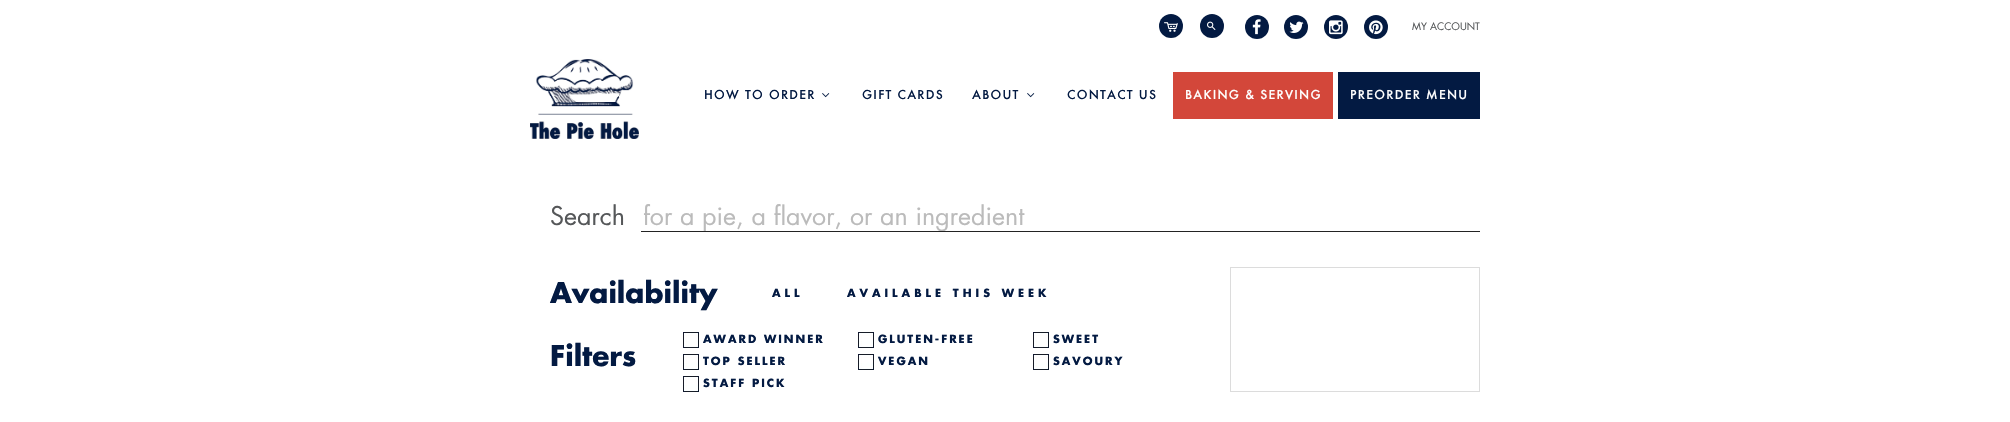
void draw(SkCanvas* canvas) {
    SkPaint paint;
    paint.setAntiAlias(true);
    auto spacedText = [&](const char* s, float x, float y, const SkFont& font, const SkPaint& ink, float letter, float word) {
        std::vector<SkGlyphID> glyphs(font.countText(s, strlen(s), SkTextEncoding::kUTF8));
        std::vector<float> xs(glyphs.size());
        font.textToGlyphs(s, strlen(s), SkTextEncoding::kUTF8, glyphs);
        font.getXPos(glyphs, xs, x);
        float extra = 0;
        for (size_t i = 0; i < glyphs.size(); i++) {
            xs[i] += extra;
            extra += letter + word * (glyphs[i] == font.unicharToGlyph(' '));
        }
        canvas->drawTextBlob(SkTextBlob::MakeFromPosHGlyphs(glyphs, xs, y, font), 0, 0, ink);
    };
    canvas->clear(0xFFFFFFFF);
    paint.setColor(0xFF031A42);
    canvas->drawCircle(1171, 26, 12, paint);
    canvas->drawImageRect(SkImages::DeferredFromEncodedData(SkData::MakeFromFileName("img1.png")), SkRect::MakeXYWH(1164, 22, 14, 10), SkSamplingOptions());
    canvas->drawCircle(1212, 26, 12, paint);
    canvas->drawImageRect(SkImages::DeferredFromEncodedData(SkData::MakeFromFileName("img2.png")), SkRect::MakeXYWH(1207, 21, 9, 9), SkSamplingOptions());
    canvas->drawCircle(1257, 27, 12, paint);
    canvas->drawImageRect(SkImages::DeferredFromEncodedData(SkData::MakeFromFileName("img3.png")), SkRect::MakeXYWH(1252, 19, 9, 16), SkSamplingOptions());
    canvas->drawCircle(1296, 27, 12, paint);
    canvas->drawImageRect(SkImages::DeferredFromEncodedData(SkData::MakeFromFileName("img4.png")), SkRect::MakeXYWH(1289, 21, 15, 12), SkSamplingOptions());
    canvas->drawCircle(1336, 27, 12, paint);
    canvas->drawImageRect(SkImages::DeferredFromEncodedData(SkData::MakeFromFileName("img5.png")), SkRect::MakeXYWH(1329, 20, 14, 15), SkSamplingOptions());
    canvas->drawCircle(1376, 27, 12, paint);
    canvas->drawImageRect(SkImages::DeferredFromEncodedData(SkData::MakeFromFileName("img6.png")), SkRect::MakeXYWH(1369, 20, 14, 15), SkSamplingOptions());
    SkFont font1(fontMgr->matchFamilyStyle("Futura", SkFontStyle::Normal()), 10);
    font1.setSubpixel(true);
    paint.setColor(0xFF555759);
    canvas->drawString("MY ACCOUNT", 1412, 30, font1, paint);
    canvas->drawImageRect(SkImages::DeferredFromEncodedData(SkData::MakeFromFileName("img7.png")), SkRect::MakeXYWH(530, 59, 109, 80), SkSamplingOptions());
    SkFont font2(fontMgr->matchFamilyStyle("Futura", SkFontStyle(500, SkFontStyle::kNormal_Width, SkFontStyle::kUpright_Slant)), 12);
    font2.setSubpixel(true);
    paint.setColor(0xFF031A42);
    spacedText("HOW TO ORDER", 704, 99, font2, paint, 1.25f, 0);
    canvas->drawImageRect(SkImages::DeferredFromEncodedData(SkData::MakeFromFileName("img8.png")), SkRect::MakeXYWH(822, 93, 8, 5), SkSamplingOptions());
    spacedText("GIFT CARDS", 862, 99, font2, paint, 1.25f, 0);
    spacedText("ABOUT", 972, 99, font2, paint, 1.25f, 0);
    canvas->drawImageRect(SkImages::DeferredFromEncodedData(SkData::MakeFromFileName("img8.png")), SkRect::MakeXYWH(1027, 93, 8, 5), SkSamplingOptions());
    spacedText("CONTACT US", 1067, 99, font2, paint, 1.25f, 0);
    paint.setColor(0xFFD3473A);
    canvas->drawRect(SkRect::MakeXYWH(1173, 72, 160, 47), paint);
    paint.setColor(0xFFFFFFFF);
    spacedText("BAKING & SERVING", 1185, 99, font2, paint, 1.25f, 0);
    paint.setColor(0xFF031A42);
    canvas->drawRect(SkRect::MakeXYWH(1338, 72, 142, 47), paint);
    paint.setColor(0xFFFFFFFF);
    spacedText("PREORDER MENU", 1350, 99, font2, paint, 1.25f, 0);
    SkFont font3(fontMgr->matchFamilyStyle("Futura", SkFontStyle::Normal()), 25);
    font3.setSubpixel(true);
    paint.setColor(0xFF555759);
    canvas->drawString("Search", 550, 225, font3, paint);
    paint.setColor(0xFF232323);
    canvas->drawRect(SkRect::MakeXYWH(641, 231, 839, 1), paint);
    canvas->save();
    canvas->clipRect(SkRect::MakeXYWH(643, 200, 835, 31));
    paint.setColor(0xFFBBBBBB);
    canvas->drawString("for a pie, a flavor, or an ingredient", 643, 225, font3, paint);
    canvas->restore();
    SkFont font4(fontMgr->matchFamilyStyle("Futura", SkFontStyle::Bold()), 28);
    font4.setSubpixel(true);
    paint.setColor(0xFF031A42);
    canvas->drawString("Availability", 550, 303, font4, paint);
    SkFont font5(fontMgr->matchFamilyStyle("Futura", SkFontStyle::Bold()), 11);
    font5.setSubpixel(true);
    spacedText("ALL", 772, 297, font5, paint, 4, 0);
    spacedText("AVAILABLE THIS WEEK", 847, 297, font5, paint, 4, 0);
    paint.setStyle(SkPaint::kStroke_Style);
    paint.setStrokeWidth(1);
    paint.setColor(0xFFDCDCDC);
    canvas->drawRect(SkRect::MakeXYWH(1230.5f, 267.5f, 249, 124), paint);
    paint.setStyle(SkPaint::kFill_Style);
    paint.setColor(0xFF031A42);
    canvas->drawString("Filters", 550, 366, font4, paint);
    canvas->drawImageRect(SkImages::DeferredFromEncodedData(SkData::MakeFromFileName("img9.png")), SkRect::MakeXYWH(683, 332, 16, 16), SkSamplingOptions());
    spacedText("AWARD WINNER", 703, 343, font5, paint, 2, 0);
    canvas->drawImageRect(SkImages::DeferredFromEncodedData(SkData::MakeFromFileName("img9.png")), SkRect::MakeXYWH(858, 332, 16, 16), SkSamplingOptions());
    spacedText("GLUTEN-FREE", 878, 343, font5, paint, 2, 0);
    canvas->drawImageRect(SkImages::DeferredFromEncodedData(SkData::MakeFromFileName("img9.png")), SkRect::MakeXYWH(1033, 332, 16, 16), SkSamplingOptions());
    spacedText("SWEET", 1053, 343, font5, paint, 2, 0);
    canvas->drawImageRect(SkImages::DeferredFromEncodedData(SkData::MakeFromFileName("img9.png")), SkRect::MakeXYWH(683, 354, 16, 16), SkSamplingOptions());
    spacedText("TOP SELLER", 703, 365, font5, paint, 2, 0);
    canvas->drawImageRect(SkImages::DeferredFromEncodedData(SkData::MakeFromFileName("img9.png")), SkRect::MakeXYWH(858, 354, 16, 16), SkSamplingOptions());
    spacedText("VEGAN", 878, 365, font5, paint, 2, 0);
    canvas->drawImageRect(SkImages::DeferredFromEncodedData(SkData::MakeFromFileName("img9.png")), SkRect::MakeXYWH(1033, 354, 16, 16), SkSamplingOptions());
    spacedText("SAVOURY", 1053, 365, font5, paint, 2, 0);
    canvas->drawImageRect(SkImages::DeferredFromEncodedData(SkData::MakeFromFileName("img9.png")), SkRect::MakeXYWH(683, 376, 16, 16), SkSamplingOptions());
    spacedText("STAFF PICK", 703, 387, font5, paint, 2, 0);
}
